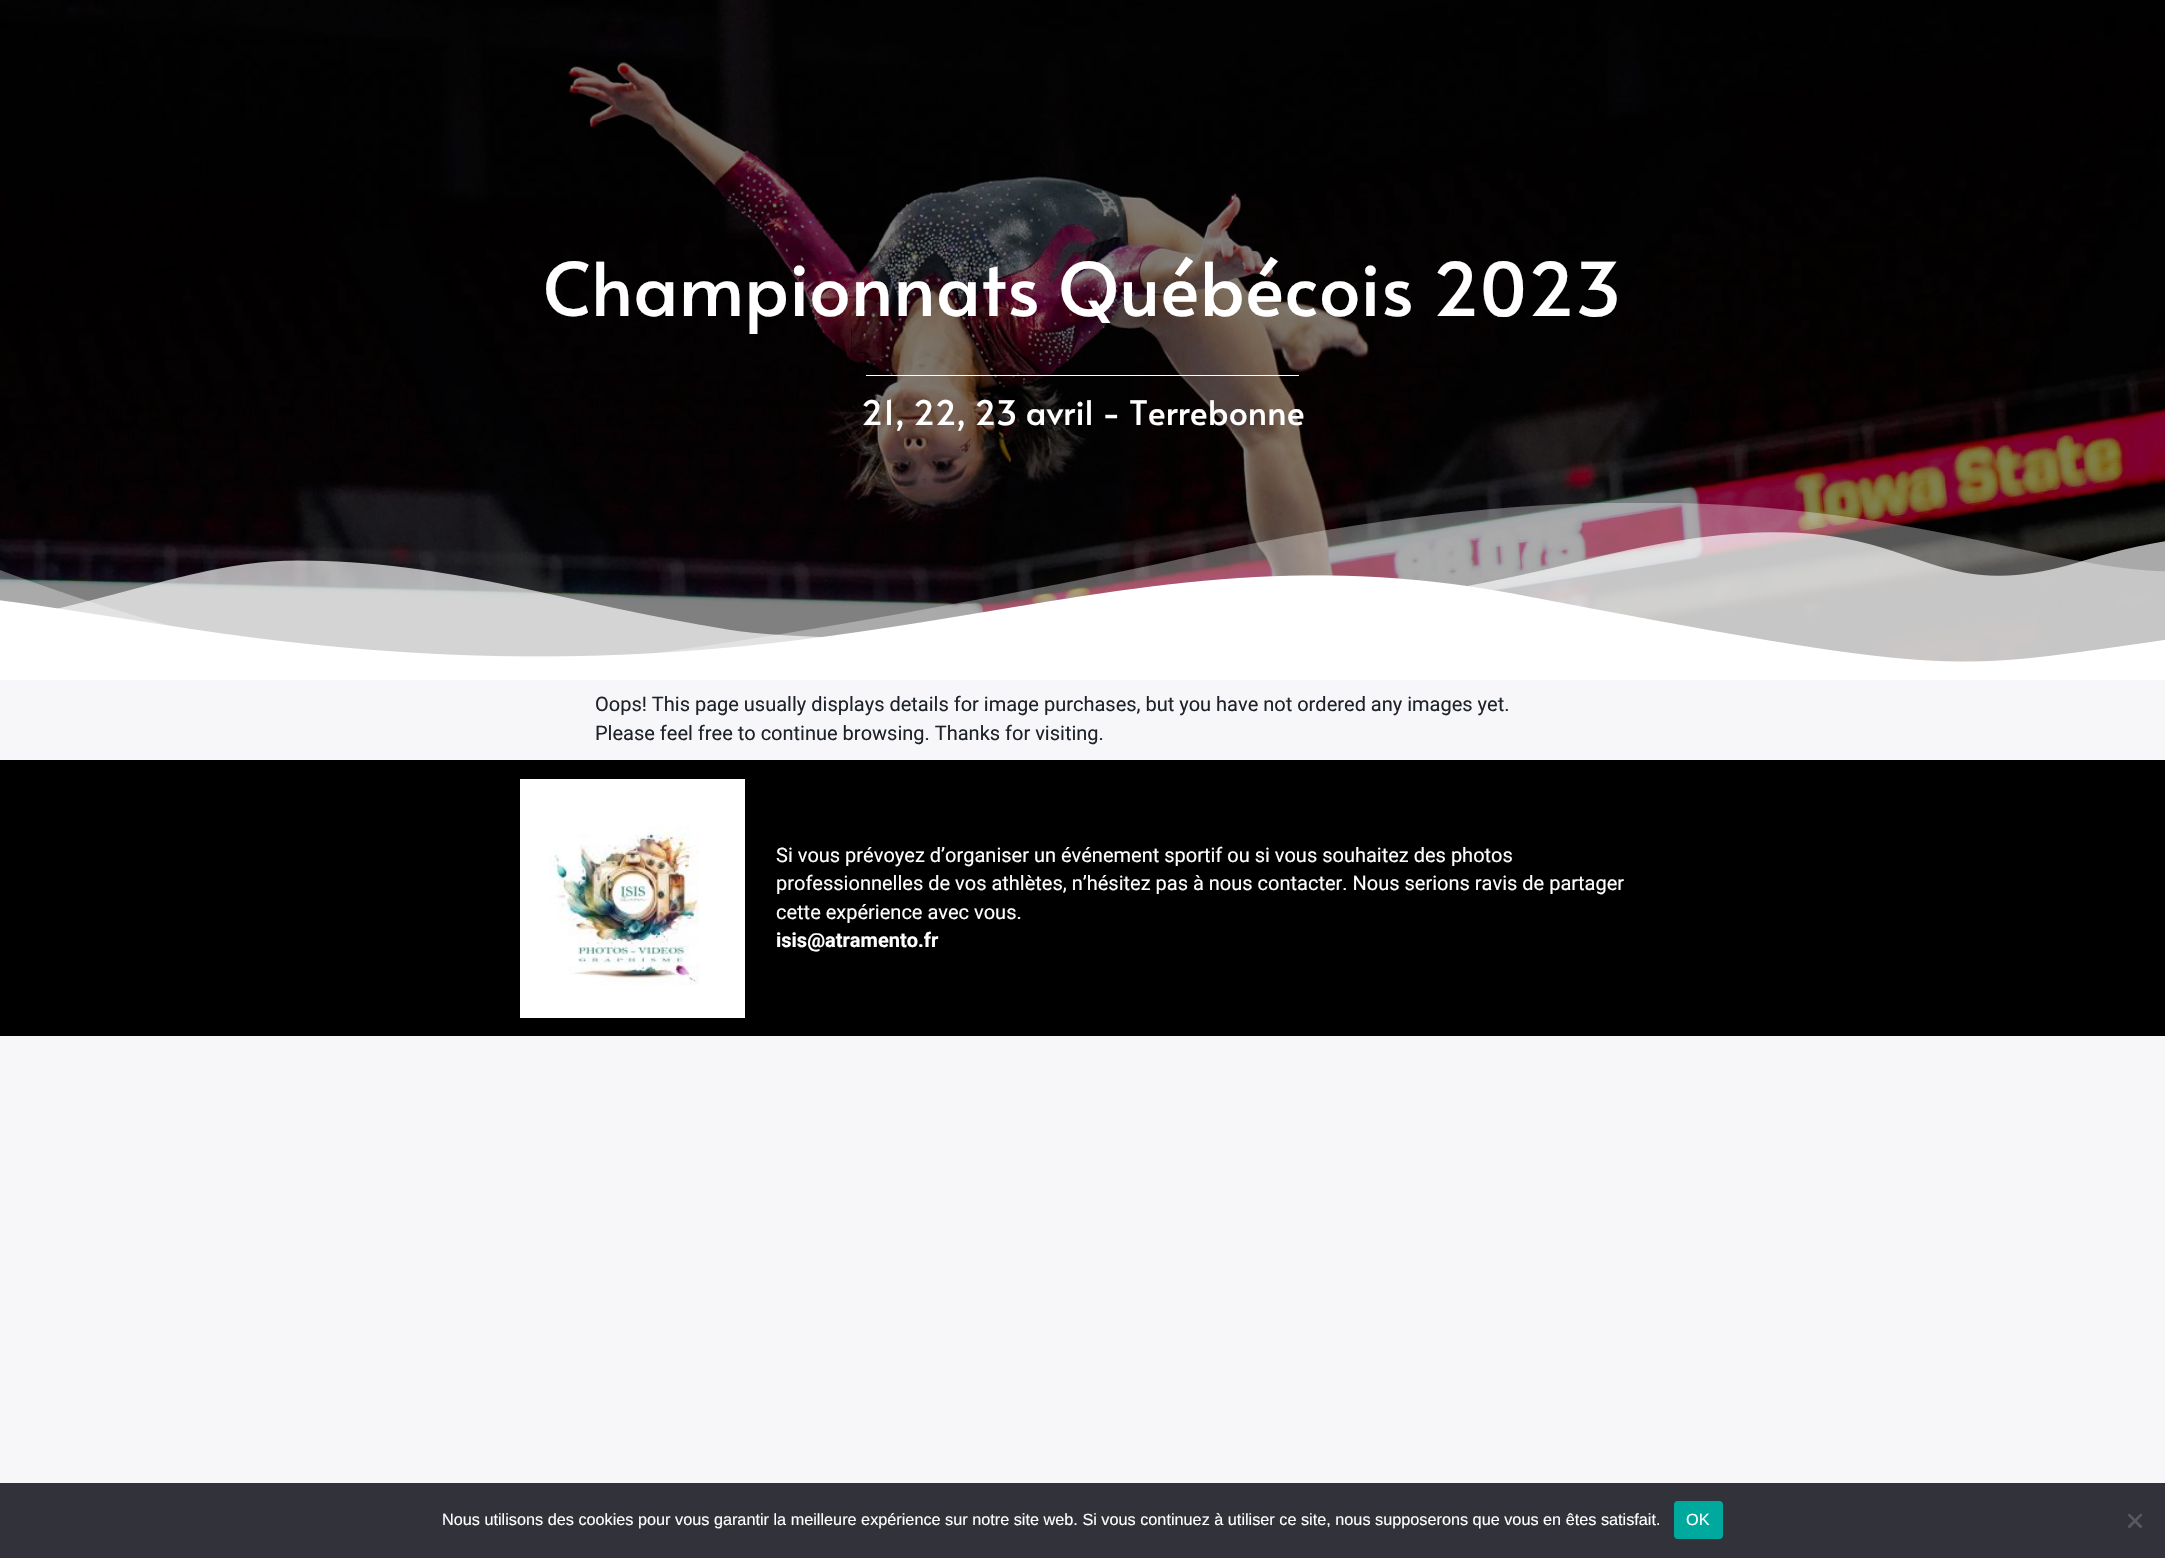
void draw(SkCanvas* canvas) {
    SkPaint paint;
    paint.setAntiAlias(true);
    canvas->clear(0xFFF7F7F9);
    canvas->drawImageRect(SkImages::DeferredFromEncodedData(SkData::MakeFromFileName("img1.png")), SkRect::MakeXYWH(0, 0, 2165, 662), SkSamplingOptions());
    SkFont font1(fontMgr->matchFamilyStyle("Alata", SkFontStyle::Normal()), 73.75f);
    font1.setSubpixel(true);
    paint.setColor(0xFFFFFFFF);
    canvas->drawString("Championnats Québécois 2023", 543, 316, font1, paint);
    canvas->drawRect(SkRect::MakeXYWH(866, 375, 433, 1), paint);
    SkFont font2(fontMgr->matchFamilyStyle("Alata", SkFontStyle::Normal()), 33.75f);
    font2.setSubpixel(true);
    canvas->drawString("21, 22, 23 avril - Terrebonne", 861, 425, font2, paint);
    canvas->drawImageRect(SkImages::DeferredFromEncodedData(SkData::MakeFromFileName("img2.png")), SkRect::MakeXYWH(0, 503, 2165, 177), SkSamplingOptions());
    SkFont font3(fontMgr->matchFamilyStyle("Roboto", SkFontStyle::Normal()), 20);
    font3.setSubpixel(true);
    paint.setColor(0xFF1E2229);
    canvas->drawString("Oops! This page usually displays details for image purchases, but you have not ordered any images yet.", 595, 711, font3, paint);
    canvas->drawString("Please feel free to continue browsing. Thanks for visiting.", 595, 740, font3, paint);
    paint.setColor(0xFF000000);
    canvas->drawRect(SkRect::MakeXYWH(0, 760, 2165, 276), paint);
    paint.setColor(0xFFFFFFFF);
    canvas->drawRect(SkRect::MakeXYWH(520, 779, 225, 239), paint);
    canvas->drawImageRect(SkImages::DeferredFromEncodedData(SkData::MakeFromFileName("img3.png")), SkRect::MakeXYWH(549, 826, 151, 159), SkSamplingOptions());
    canvas->drawString("Si vous prévoyez d’organiser un événement sportif ou si vous souhaitez des photos", 776, 862, font3, paint);
    canvas->drawString("professionnelles de vos athlètes, n’hésitez pas à nous contacter. Nous serions ravis de partager", 776, 890, font3, paint);
    canvas->drawString("cette expérience avec vous.", 776, 919, font3, paint);
    SkFont font4(fontMgr->matchFamilyStyle("Roboto", SkFontStyle::Bold()), 20);
    font4.setSubpixel(true);
    canvas->drawString("isis@atramento.fr", 776, 947, font4, paint);
    paint.setColor(0xFF32323A);
    canvas->drawRect(SkRect::MakeXYWH(0, 1483, 2165, 75), paint);
    SkFont font5(fontMgr->matchFamilyStyle("Liberation Sans", SkFontStyle::Normal()), 16.25f);
    font5.setSubpixel(true);
    paint.setColor(0xFFFFFFFF);
    canvas->drawString("Nous utilisons des cookies pour vous garantir la meilleure expérience sur notre site web. Si vous continuez à utiliser ce site, nous supposerons que vous en êtes satisfait.", 442, 1525, font5, paint);
    paint.setColor(0xFF00A99D);
    canvas->drawRoundRect(SkRect::MakeXYWH(1674, 1501, 49, 38), 4, 4, paint);
    paint.setColor(0xFFFFFFFF);
    canvas->drawString("OK", 1686, 1525, font5, paint);
    paint.setColor(0xFF59595D);
    canvas->drawPath(SkPathBuilder().moveTo(2140.5f, 1513.5f).lineTo(2142.5f, 1515).lineTo(2129.5f, 1528.5f).lineTo(2127.5f, 1526.5f).close().detach(), paint);
    canvas->drawPath(SkPathBuilder().moveTo(2127.5f, 1515).lineTo(2129.5f, 1513.5f).lineTo(2142.5f, 1526.5f).lineTo(2140.5f, 1528.5f).close().detach(), paint);
}
